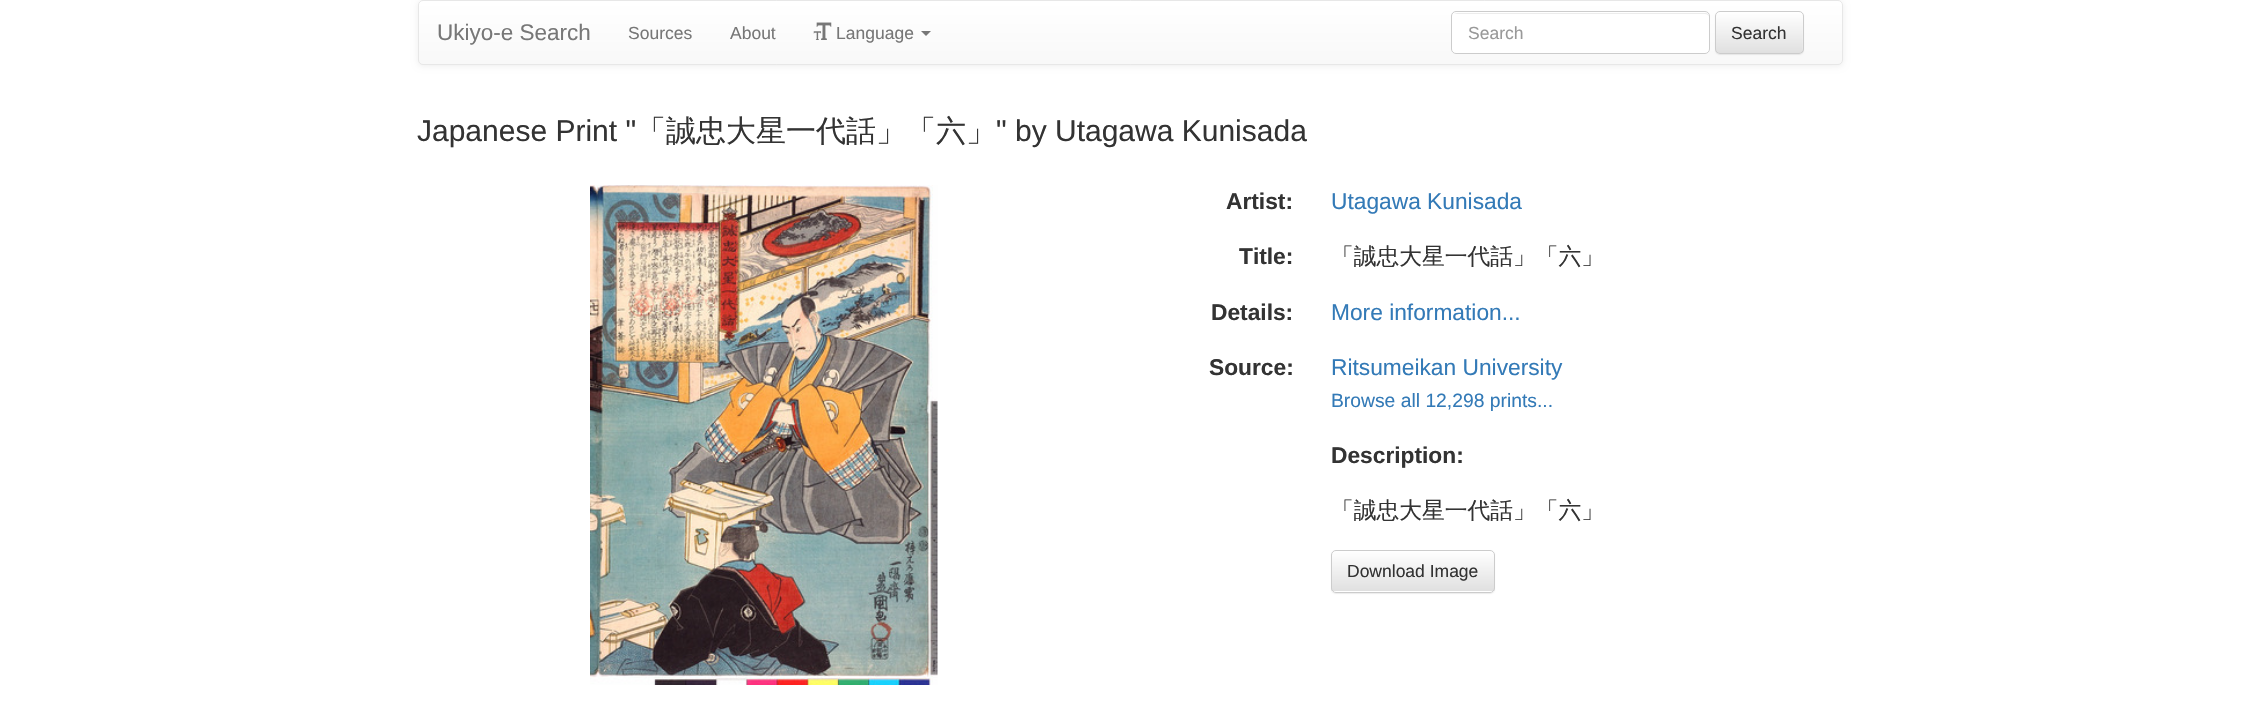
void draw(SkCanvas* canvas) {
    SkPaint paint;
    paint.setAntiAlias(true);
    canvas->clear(0xFFFFFFFF);
    paint.setColor(0x12000000);
    paint.setMaskFilter(SkMaskFilter::MakeBlur(kNormal_SkBlurStyle, 3));
    canvas->drawRoundRect(SkRect::MakeXYWH(418, 1, 1425, 65), 5, 5, paint);
    paint.setMaskFilter(nullptr);
    canvas->save();
    canvas->clipPath(SkPathBuilder().moveTo(423, 0).lineTo(1838, 0).cubicTo(1841, 0, 1843, 2, 1843, 5).lineTo(1843, 60).cubicTo(1843, 63, 1841, 65, 1838, 65).lineTo(423, 65).cubicTo(420, 65, 418, 63, 418, 60).lineTo(418, 5).cubicTo(418, 2, 420, 0, 423, 0).close().detach(), true);
    {
        const SkColor colors[] = {0xFFFFFFFF, 0xFFF8F8F8};
        const float stops[] = {0, 1};
        const SkPoint ends[] = {{1130, 1.2f}, {1130, 64}};
        paint.setShader(SkGradientShader::MakeLinear(ends, colors, stops, 2, SkTileMode::kClamp));
        paint.setAlpha(255);
    }
    canvas->drawRect(SkRect::MakeXYWH(418, 1, 1425, 63), paint);
    canvas->restore();
    paint.setStyle(SkPaint::kStroke_Style);
    paint.setStrokeWidth(1);
    paint.setShader(nullptr);
    paint.setColor(0xFFE7E7E7);
    canvas->drawRoundRect(SkRect::MakeXYWH(418.5f, 0.5f, 1424, 64), 4.5f, 4.5f, paint);
    SkFont font1(fontMgr->matchFamilyStyle("Liberation Sans", SkFontStyle::Normal()), 22.5f);
    font1.setSubpixel(true);
    paint.setStyle(SkPaint::kFill_Style);
    paint.setColor(0xFF777777);
    canvas->drawString("Ukiyo-e Search", 437, 40, font1, paint);
    SkFont font2(fontMgr->matchFamilyStyle("Liberation Sans", SkFontStyle::Normal()), 17.5f);
    font2.setSubpixel(true);
    canvas->drawString("Sources", 628, 39, font2, paint);
    canvas->drawString("About", 730, 39, font2, paint);
    canvas->drawImageRect(SkImages::DeferredFromEncodedData(SkData::MakeFromFileName("img1.png")), SkRect::MakeXYWH(813, 22, 19, 18), SkSamplingOptions());
    canvas->drawString("Language", 836, 39, font2, paint);
    canvas->drawPath(SkPathBuilder().moveTo(921, 31).lineTo(931, 31).lineTo(926, 36).close().detach(), paint);
    paint.setColor(0xFFFFFFFF);
    canvas->drawRoundRect(SkRect::MakeXYWH(1451, 11, 259, 43), 5, 5, paint);
    paint.setColor(0xFFECECEC);
    canvas->drawPath(SkPathBuilder().moveTo(1456, 14).lineTo(1705, 14).cubicTo(1707, 14, 1709, 15, 1709, 18).cubicTo(1709, 15, 1708, 13, 1705, 13).lineTo(1457, 13).lineTo(1454, 14).close().detach(), paint);
    paint.setStyle(SkPaint::kStroke_Style);
    paint.setColor(0xFFCCCCCC);
    canvas->drawRoundRect(SkRect::MakeXYWH(1451.5f, 11.5f, 258, 42), 4.5f, 4.5f, paint);
    paint.setStyle(SkPaint::kFill_Style);
    paint.setColor(0xFF999999);
    canvas->drawString("Search", 1468, 39, font2, paint);
    paint.setColor(0x12000000);
    paint.setMaskFilter(SkMaskFilter::MakeBlur(kNormal_SkBlurStyle, 0.5f));
    canvas->drawRoundRect(SkRect::MakeXYWH(1715, 13, 89, 42), 5, 5, paint);
    paint.setMaskFilter(nullptr);
    paint.setColor(0xFFFFFFFF);
    canvas->drawRoundRect(SkRect::MakeXYWH(1715, 11, 89, 43), 5, 5, paint);
    canvas->save();
    canvas->clipPath(SkPathBuilder().moveTo(1720, 11).lineTo(1799, 11).cubicTo(1802, 11, 1804, 13, 1804, 16).lineTo(1804, 49).cubicTo(1804, 52, 1802, 54, 1799, 54).lineTo(1720, 54).cubicTo(1717, 54, 1715, 52, 1715, 49).lineTo(1715, 16).cubicTo(1715, 13, 1717, 11, 1720, 11).close().detach(), true);
    {
        const SkColor colors[] = {0xFFFFFFFF, 0xFFE0E0E0};
        const float stops[] = {0, 1};
        const SkPoint ends[] = {{1759, 12}, {1759, 53}};
        paint.setShader(SkGradientShader::MakeLinear(ends, colors, stops, 2, SkTileMode::kClamp));
        paint.setAlpha(255);
    }
    canvas->drawRect(SkRect::MakeXYWH(1715, 13, 89, 40), paint);
    canvas->restore();
    paint.setShader(nullptr);
    paint.setColor(0x26FFFFFF);
    canvas->drawPath(SkPathBuilder().moveTo(1720, 14).lineTo(1799, 14).cubicTo(1803, 14, 1802, 21, 1802, 23).lineTo(1802, 52).cubicTo(1802, 51, 1803, 50, 1803, 49).lineTo(1803, 17).cubicTo(1803, 15, 1801, 13, 1799, 13).lineTo(1720, 13).cubicTo(1718, 13, 1716, 15, 1716, 17).lineTo(1716, 18).cubicTo(1716, 15, 1718, 14, 1720, 14).close().detach(), paint);
    paint.setStyle(SkPaint::kStroke_Style);
    paint.setColor(0xFFCCCCCC);
    canvas->drawRoundRect(SkRect::MakeXYWH(1715.5f, 11.5f, 88, 42), 4.5f, 4.5f, paint);
    paint.setStyle(SkPaint::kFill_Style);
    paint.setColor(0xFF333333);
    canvas->drawString("Search", 1731, 39, font2, paint);
    SkFont font3(fontMgr->matchFamilyStyle("Liberation Sans", SkFontStyle::Normal()), 30);
    font3.setSubpixel(true);
    canvas->drawString("Japanese Print \"", 417, 141, font3, paint);
    SkFont font4(fontMgr->matchFamilyStyle("WenQuanYi Zen Hei", SkFontStyle(500, SkFontStyle::kNormal_Width, SkFontStyle::kUpright_Slant)), 30);
    font4.setSubpixel(true);
    canvas->drawString("「誠忠大星一代話」「六」", 636, 141, font4, paint);
    canvas->drawString("\" by Utagawa Kunisada", 996, 141, font3, paint);
    canvas->drawImageRect(SkImages::DeferredFromEncodedData(SkData::MakeFromFileName("img2.png")), SkRect::MakeXYWH(590, 185, 348, 500), SkSamplingOptions());
    SkFont font5(fontMgr->matchFamilyStyle("Liberation Sans", SkFontStyle::Bold()), 22.75f);
    font5.setSubpixel(true);
    canvas->drawString("Artist:", 1226, 209, font5, paint);
    SkFont font6(fontMgr->matchFamilyStyle("Liberation Sans", SkFontStyle::Normal()), 22.75f);
    font6.setSubpixel(true);
    paint.setColor(0xFF337AB7);
    canvas->drawString("Utagawa Kunisada", 1331, 209, font6, paint);
    paint.setColor(0xFF333333);
    canvas->drawString("Title:", 1239, 264, font5, paint);
    SkFont font7(fontMgr->matchFamilyStyle("WenQuanYi Zen Hei", SkFontStyle(500, SkFontStyle::kNormal_Width, SkFontStyle::kUpright_Slant)), 22.75f);
    font7.setSubpixel(true);
    canvas->drawString("「誠忠大星一代話」「六」", 1331, 264, font7, paint);
    canvas->drawString("Details:", 1211, 320, font5, paint);
    paint.setColor(0xFF337AB7);
    canvas->drawString("More information...", 1331, 320, font6, paint);
    paint.setColor(0xFF333333);
    canvas->drawString("Source:", 1209, 375, font5, paint);
    paint.setColor(0xFF337AB7);
    canvas->drawString("Ritsumeikan University", 1331, 375, font6, paint);
    SkFont font8(fontMgr->matchFamilyStyle("Liberation Sans", SkFontStyle::Normal()), 19.3f);
    font8.setSubpixel(true);
    canvas->drawString("Browse all 12,298 prints...", 1331, 407, font8, paint);
    paint.setColor(0xFF333333);
    canvas->drawString("Description:", 1331, 463, font5, paint);
    canvas->drawString("「誠忠大星一代話」「六」", 1331, 518, font7, paint);
    paint.setColor(0x12000000);
    paint.setMaskFilter(SkMaskFilter::MakeBlur(kNormal_SkBlurStyle, 0.5f));
    canvas->drawRoundRect(SkRect::MakeXYWH(1331, 551, 164, 43), 5, 5, paint);
    paint.setMaskFilter(nullptr);
    paint.setColor(0xFFFFFFFF);
    canvas->drawRoundRect(SkRect::MakeXYWH(1331, 550, 164, 43), 5, 5, paint);
    canvas->save();
    canvas->clipPath(SkPathBuilder().moveTo(1336, 550).lineTo(1490, 550).cubicTo(1493, 550, 1495, 552, 1495, 555).lineTo(1495, 588).cubicTo(1495, 591, 1493, 593, 1490, 593).lineTo(1336, 593).cubicTo(1333, 593, 1331, 591, 1331, 588).lineTo(1331, 555).cubicTo(1331, 552, 1333, 550, 1336, 550).close().detach(), true);
    {
        const SkColor colors[] = {0xFFFFFFFF, 0xFFE0E0E0};
        const float stops[] = {0, 1};
        const SkPoint ends[] = {{1413, 551}, {1413, 591}};
        paint.setShader(SkGradientShader::MakeLinear(ends, colors, stops, 2, SkTileMode::kClamp));
        paint.setAlpha(255);
    }
    canvas->drawRect(SkRect::MakeXYWH(1331, 551, 164, 40), paint);
    canvas->restore();
    paint.setStyle(SkPaint::kStroke_Style);
    paint.setShader(nullptr);
    paint.setColor(0xFFCCCCCC);
    canvas->drawRoundRect(SkRect::MakeXYWH(1331.5f, 550.5f, 163, 42), 4.5f, 4.5f, paint);
    paint.setStyle(SkPaint::kFill_Style);
    paint.setColor(0xFF333333);
    canvas->drawString("Download Image", 1347, 577, font2, paint);
}
